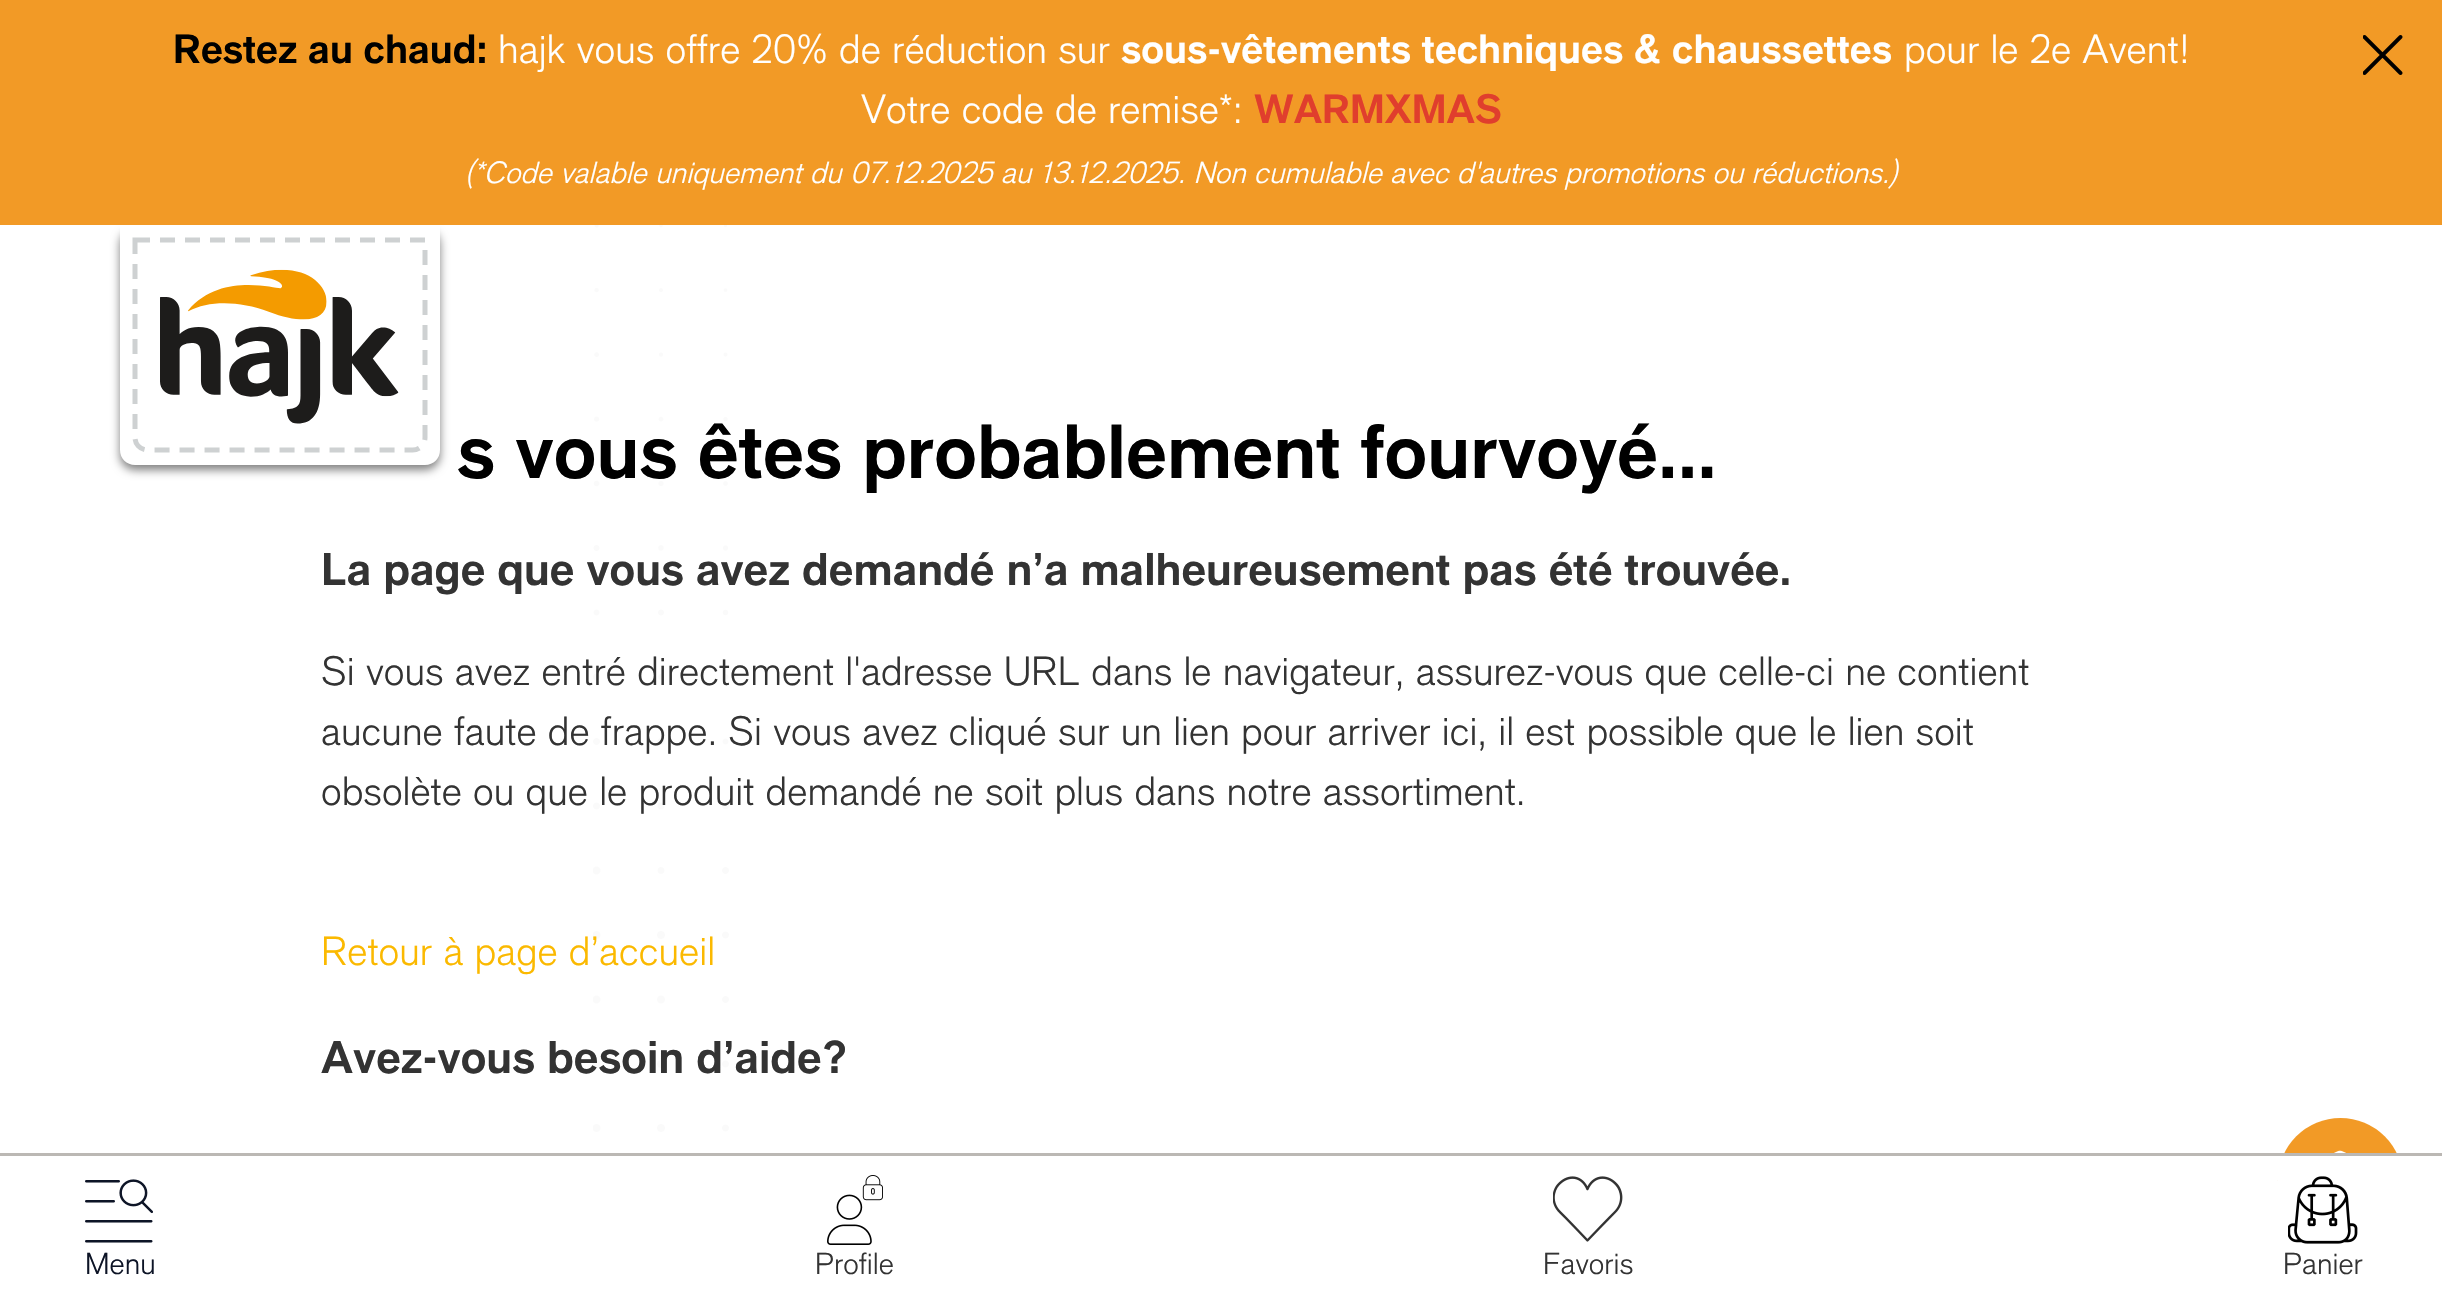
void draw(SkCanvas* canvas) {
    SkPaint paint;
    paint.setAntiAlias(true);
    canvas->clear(0xFFFFFFFF);
    paint.setColor(0x80000000);
    paint.setMaskFilter(SkMaskFilter::MakeBlur(kNormal_SkBlurStyle, 5));
    canvas->drawRoundRect(SkRect::MakeXYWH(120, 230, 320, 240), 15, 15, paint);
    paint.setMaskFilter(nullptr);
    paint.setColor(0xFFF29A26);
    canvas->drawRect(SkRect::MakeXYWH(0, 0, 2442, 225), paint);
    SkFont font1(fontMgr->matchFamilyStyle("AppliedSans", SkFontStyle::Bold()), 40);
    font1.setSubpixel(true);
    paint.setColor(0xFF000000);
    canvas->drawString("Restez au chaud:", 173, 63, font1, paint);
    SkFont font2(fontMgr->matchFamilyStyle("AppliedSans", SkFontStyle(300, SkFontStyle::kNormal_Width, SkFontStyle::kUpright_Slant)), 40);
    font2.setSubpixel(true);
    paint.setColor(0xFFFFFFFF);
    canvas->drawString("hajk vous offre 20% de réduction sur", 498, 63, font2, paint);
    canvas->drawString("sous-vêtements techniques & chaussettes", 1121, 63, font1, paint);
    canvas->drawString("pour le 2e Avent!", 1904, 63, font2, paint);
    canvas->drawString("Votre code de remise*:", 861, 123, font2, paint);
    paint.setColor(0xFFE03E2D);
    canvas->drawString("WARMXMAS", 1254, 123, font1, paint);
    SkFont font3(fontMgr->matchFamilyStyle("AppliedSans", SkFontStyle(300, SkFontStyle::kNormal_Width, SkFontStyle::kItalic_Slant)), 30);
    font3.setSubpixel(true);
    paint.setColor(0xFFFFFFFF);
    canvas->drawString("(*Code valable uniquement du 07.12.2025 au 13.12.2025. Non cumulable avec d'autres promotions ou réductions.)", 464, 183, font3, paint);
    canvas->drawImageRect(SkImages::DeferredFromEncodedData(SkData::MakeFromFileName("img1.png")), SkRect::MakeXYWH(2363, 35, 40, 40), SkSamplingOptions());
    canvas->drawPath(SkPathBuilder().moveTo(120, 225).lineTo(440, 225).lineTo(440, 450).cubicTo(440, 458.5f, 433.5f, 465, 425, 465).lineTo(135, 465).cubicTo(126.5f, 465, 120, 458.5f, 120, 450).close().detach(), paint);
    paint.setStyle(SkPaint::kStroke_Style);
    paint.setStrokeWidth(5);
    paint.setColor(0xFFCED1D2);
    paint.setPathEffect(SkDashPathEffect::Make({{15, 10}}, 0));
    canvas->drawPath(SkPathBuilder().moveTo(135, 240).lineTo(425, 240).lineTo(425, 437.5f).cubicTo(425, 444.5f, 419.5f, 450, 412.5f, 450).lineTo(147.5f, 450).cubicTo(140.5f, 450, 135, 444.5f, 135, 437.5f).close().detach(), paint);
    paint.setPathEffect(nullptr);
    canvas->drawImageRect(SkImages::DeferredFromEncodedData(SkData::MakeFromFileName("img2.png")), SkRect::MakeXYWH(160, 269, 239, 155), SkSamplingOptions());
    canvas->drawImageRect(SkImages::DeferredFromEncodedData(SkData::MakeFromFileName("img8.png")), SkRect::MakeXYWH(593, 225, 136, 907), SkSamplingOptions());
    SkFont font4(fontMgr->matchFamilyStyle("AppliedSans", SkFontStyle::Bold()), 75);
    font4.setSubpixel(true);
    paint.setStyle(SkPaint::kFill_Style);
    paint.setColor(0xFF000000);
    canvas->drawString("s vous êtes probablement fourvoyé...", 457, 478, font4, paint);
    SkFont font5(fontMgr->matchFamilyStyle("AppliedSans", SkFontStyle::Bold()), 45);
    font5.setSubpixel(true);
    paint.setColor(0xFF333333);
    canvas->drawString("La page que vous avez demandé n’a malheureusement pas été trouvée.", 321, 585, font5, paint);
    canvas->drawString("Si vous avez entré directement l'adresse URL dans le navigateur, assurez-vous que celle-ci ne contient", 321, 685, font2, paint);
    canvas->drawString("aucune faute de frappe. Si vous avez cliqué sur un lien pour arriver ici, il est possible que le lien soit", 321, 745, font2, paint);
    canvas->drawString("obsolète ou que le produit demandé ne soit plus dans notre assortiment.", 321, 805, font2, paint);
    paint.setColor(0xFFFBB900);
    canvas->drawString("Retour à page d’accueil", 321, 965, font2, paint);
    paint.setColor(0xFF333333);
    canvas->drawString("Avez-vous besoin d’aide?", 321, 1073, font5, paint);
    paint.setColor(0xFFF29A26);
    canvas->drawCircle(2340.5f, 1180.5f, 62.5f, paint);
    canvas->drawImageRect(SkImages::DeferredFromEncodedData(SkData::MakeFromFileName("img3.png")), SkRect::MakeXYWH(2334, 1150, 12, 3), SkSamplingOptions());
    paint.setColor(0xFFFFFFFF);
    canvas->drawRect(SkRect::MakeXYWH(2278, 1156, 125, 87), paint);
    paint.setColor(0xFFBBB8B4);
    canvas->drawRect(SkRect::MakeXYWH(0, 1153, 2442, 3), paint);
    canvas->drawImageRect(SkImages::DeferredFromEncodedData(SkData::MakeFromFileName("img4.png")), SkRect::MakeXYWH(85, 1179, 68, 64), SkSamplingOptions());
    SkFont font6(fontMgr->matchFamilyStyle("AppliedSans", SkFontStyle(300, SkFontStyle::kNormal_Width, SkFontStyle::kUpright_Slant)), 30);
    font6.setSubpixel(true);
    paint.setColor(0xFF0D1426);
    canvas->drawString("Menu", 85, 1274, font6, paint);
    canvas->drawImageRect(SkImages::DeferredFromEncodedData(SkData::MakeFromFileName("img5.png")), SkRect::MakeXYWH(827, 1175, 56, 70), SkSamplingOptions());
    paint.setColor(0xFF333333);
    canvas->drawString("Profile", 815, 1274, font6, paint);
    canvas->drawImageRect(SkImages::DeferredFromEncodedData(SkData::MakeFromFileName("img6.png")), SkRect::MakeXYWH(1553, 1176, 70, 66), SkSamplingOptions());
    canvas->drawString("Favoris", 1543, 1274, font6, paint);
    canvas->drawImageRect(SkImages::DeferredFromEncodedData(SkData::MakeFromFileName("img7.png")), SkRect::MakeXYWH(2288, 1176, 70, 68), SkSamplingOptions());
    canvas->drawString("Panier", 2283, 1274, font6, paint);
}
